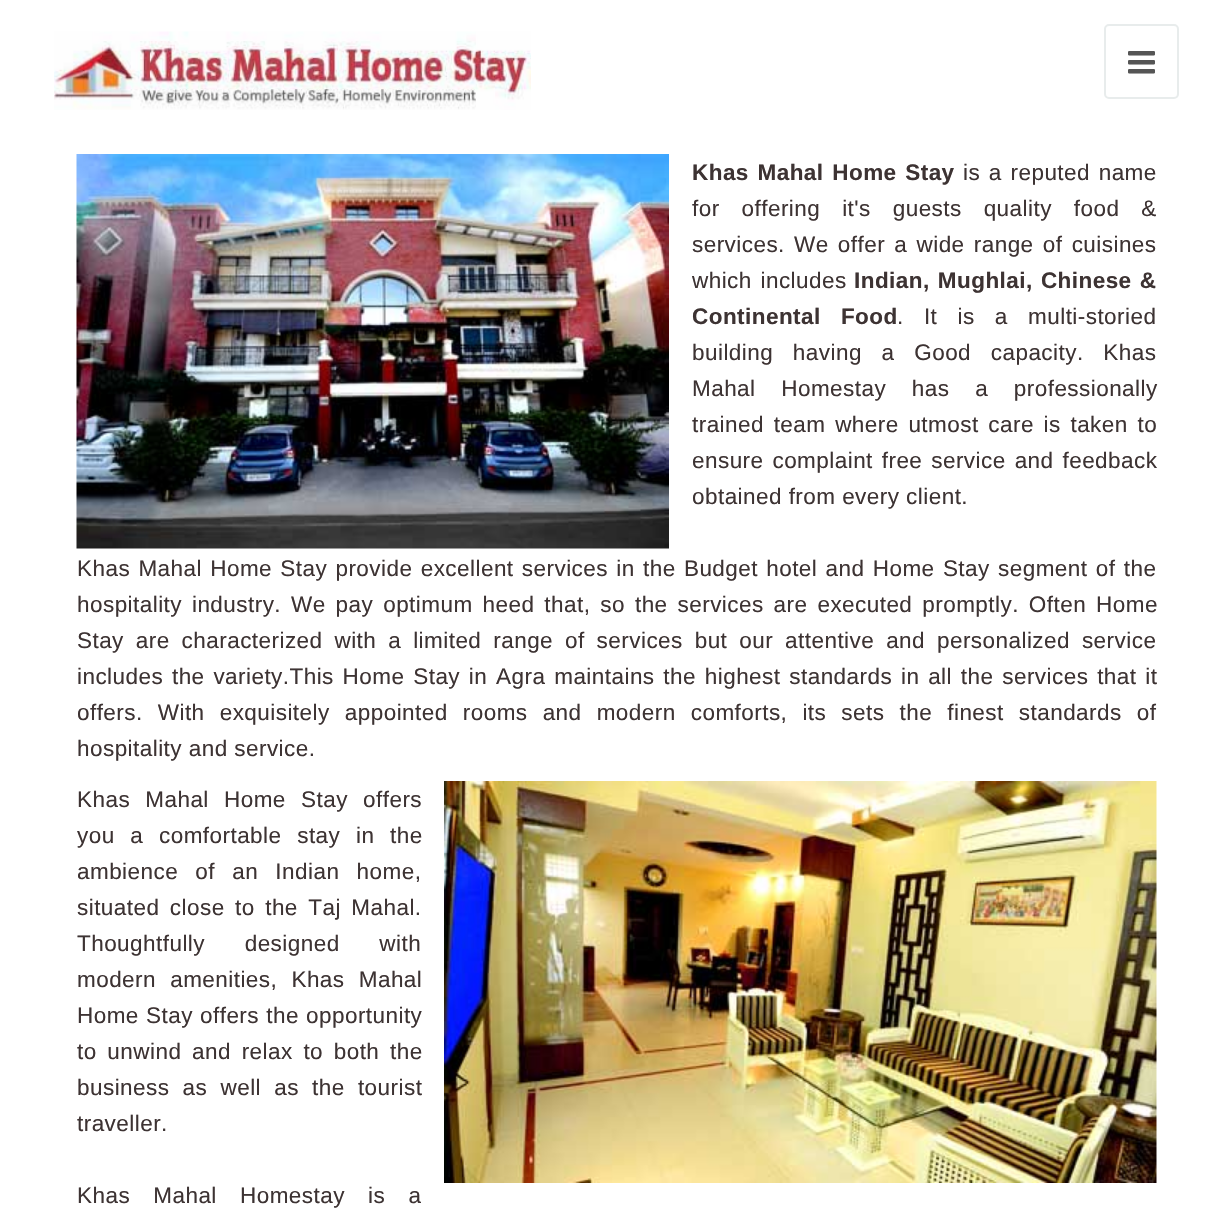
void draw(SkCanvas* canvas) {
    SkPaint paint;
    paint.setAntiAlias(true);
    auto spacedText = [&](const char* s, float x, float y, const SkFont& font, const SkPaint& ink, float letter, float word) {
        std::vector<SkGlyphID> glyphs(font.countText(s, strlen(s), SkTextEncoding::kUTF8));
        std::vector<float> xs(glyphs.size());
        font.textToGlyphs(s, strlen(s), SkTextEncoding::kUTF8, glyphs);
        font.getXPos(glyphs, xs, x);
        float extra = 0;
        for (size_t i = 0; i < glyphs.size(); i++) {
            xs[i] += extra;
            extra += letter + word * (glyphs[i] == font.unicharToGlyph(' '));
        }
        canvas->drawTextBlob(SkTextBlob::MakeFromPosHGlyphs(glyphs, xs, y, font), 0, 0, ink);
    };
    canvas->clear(0xFFFFFFFF);
    canvas->drawImageRect(SkImages::DeferredFromEncodedData(SkData::MakeFromFileName("img1.png")), SkRect::MakeXYWH(54, 31, 477, 79), SkSamplingOptions());
    paint.setStyle(SkPaint::kStroke_Style);
    paint.setStrokeWidth(2);
    paint.setColor(0xFFE8ECEC);
    canvas->drawRoundRect(SkRect::MakeXYWH(1105, 25, 73, 73), 4, 4, paint);
    canvas->drawImageRect(SkImages::DeferredFromEncodedData(SkData::MakeFromFileName("img2.png")), SkRect::MakeXYWH(1128, 51, 27, 23), SkSamplingOptions());
    canvas->drawImageRect(SkImages::DeferredFromEncodedData(SkData::MakeFromFileName("img3.png")), SkRect::MakeXYWH(76, 154, 593, 395), SkSamplingOptions());
    SkFont font1(fontMgr->matchFamilyStyle("Liberation Sans", SkFontStyle::Bold()), 22.5f);
    font1.setSubpixel(true);
    paint.setStyle(SkPaint::kFill_Style);
    paint.setColor(0xFF3D3333);
    spacedText("Khas Mahal Home Stay", 692, 180, font1, paint, 0.45f, 2);
    SkFont font2(fontMgr->matchFamilyStyle("Liberation Sans", SkFontStyle::Normal()), 22.5f);
    font2.setSubpixel(true);
    spacedText("is a reputed name", 963, 180, font2, paint, 0.45f, 2);
    spacedText("for offering it's guests quality food &", 692, 216, font2, paint, 0.45f, 15.25f);
    spacedText("services. We offer a wide range of cuisines", 692, 252, font2, paint, 0.45f, 2.5f);
    spacedText("which includes", 692, 288, font2, paint, 0.45f, 2);
    spacedText("Indian, Mughlai, Chinese &", 854, 288, font1, paint, 0.45f, 1.5f);
    spacedText("Continental Food", 692, 324, font1, paint, 0.45f, 13.5f);
    spacedText(". It is a multi-storied", 897, 324, font2, paint, 0.45f, 13.5f);
    spacedText("building having a Good capacity. Khas", 692, 360, font2, paint, 0.45f, 13);
    spacedText("Mahal Homestay has a professionally", 692, 396, font2, paint, 0.45f, 19);
    spacedText("trained team where utmost care is taken to", 692, 432, font2, paint, 0.45f, 3);
    spacedText("ensure complaint free service and feedback", 692, 468, font2, paint, 0.45f, 2.25f);
    spacedText("obtained from every client.", 692, 504, font2, paint, 0.45f, 0);
    spacedText("Khas Mahal Home Stay provide excellent services in the Budget hotel and Home Stay segment of the", 77, 576, font2, paint, 0.45f, 1.6f);
    spacedText("hospitality industry. We pay optimum heed that, so the services are executed promptly. Often Home", 77, 612, font2, paint, 0.45f, 3.25f);
    spacedText("Stay are characterized with a limited range of services but our attentive and personalized service", 77, 648, font2, paint, 0.45f, 5.25f);
    spacedText("includes the variety.This Home Stay in Agra maintains the highest standards in all the services that it", 77, 684, font2, paint, 0.45f, 2.1f);
    spacedText("offers. With exquisitely appointed rooms and modern comforts, its sets the finest standards of", 77, 720, font2, paint, 0.45f, 8.4f);
    spacedText("hospitality and service.", 77, 756, font2, paint, 0.45f, 0);
    spacedText("Khas Mahal Home Stay offers", 77, 807, font2, paint, 0.45f, 8.5f);
    canvas->drawImageRect(SkImages::DeferredFromEncodedData(SkData::MakeFromFileName("img4.png")), SkRect::MakeXYWH(444, 781, 713, 402), SkSamplingOptions());
    spacedText("you a comfortable stay in the", 77, 843, font2, paint, 0.45f, 9);
    spacedText("ambience of an Indian home,", 77, 879, font2, paint, 0.45f, 10.5f);
    spacedText("situated close to the Taj Mahal.", 77, 915, font2, paint, 0.45f, 3.75f);
    spacedText("Thoughtfully designed with", 77, 951, font2, paint, 0.45f, 33);
    spacedText("modern amenities, Khas Mahal", 77, 987, font2, paint, 0.45f, 7.5f);
    spacedText("Home Stay offers the opportunity", 77, 1023, font2, paint, 0.45f, 0.5f);
    spacedText("to unwind and relax to both the", 77, 1059, font2, paint, 0.45f, 4);
    spacedText("business as well as the tourist", 77, 1095, font2, paint, 0.45f, 6.5f);
    spacedText("traveller.", 77, 1131, font2, paint, 0.45f, 0);
    spacedText("Khas Mahal Homestay is a", 77, 1203, font2, paint, 0.45f, 16.5f);
}
